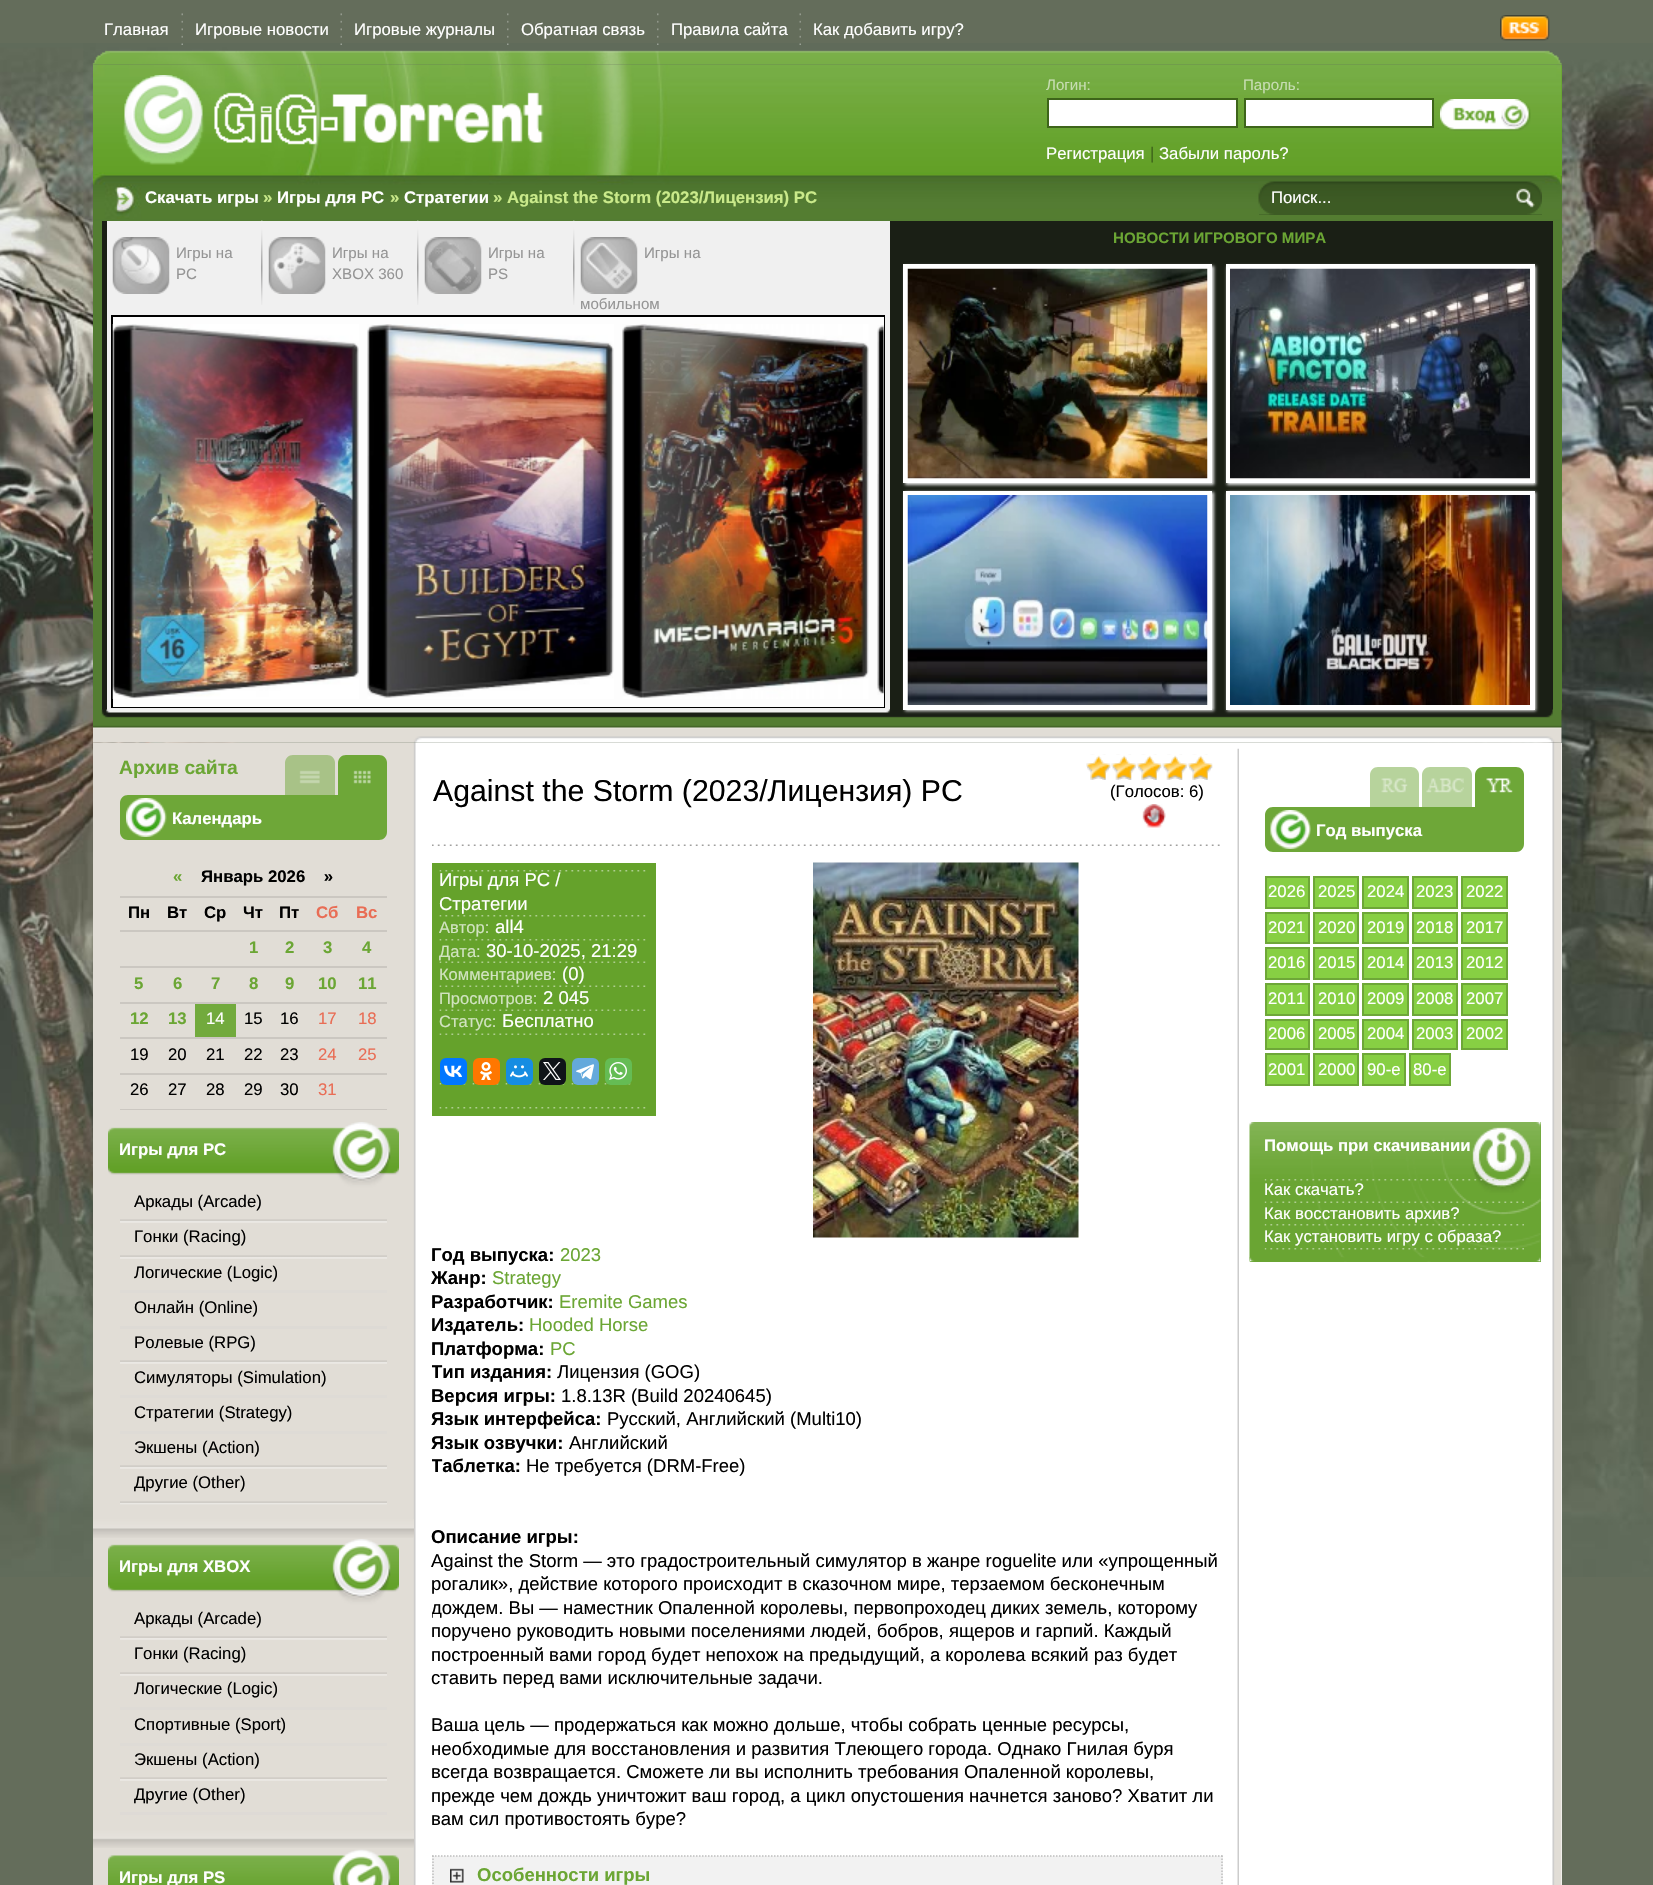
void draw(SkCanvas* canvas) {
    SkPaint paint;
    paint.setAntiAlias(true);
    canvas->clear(0xFF646D5B);
    canvas->drawImageRect(SkImages::DeferredFromEncodedData(SkData::MakeFromFileName("img1.png")), SkRect::MakeXYWH(0, 43, 1653, 1534), SkSamplingOptions());
    canvas->drawImageRect(SkImages::DeferredFromEncodedData(SkData::MakeFromFileName("img2.png")), SkRect::MakeXYWH(181, 13, 2, 32), SkSamplingOptions());
    SkFont font1(fontMgr->matchFamilyStyle("Liberation Sans", SkFontStyle::Normal()), 16.75f);
    font1.setSubpixel(true);
    paint.setColor(0xFFFFFFFF);
    canvas->drawString("Главная", 104, 35, font1, paint);
    canvas->drawImageRect(SkImages::DeferredFromEncodedData(SkData::MakeFromFileName("img2.png")), SkRect::MakeXYWH(340, 13, 2, 32), SkSamplingOptions());
    canvas->drawString("Игровые новости", 195, 35, font1, paint);
    canvas->drawImageRect(SkImages::DeferredFromEncodedData(SkData::MakeFromFileName("img3.png")), SkRect::MakeXYWH(507, 13, 2, 32), SkSamplingOptions());
    canvas->drawString("Игровые журналы", 354, 35, font1, paint);
    canvas->drawImageRect(SkImages::DeferredFromEncodedData(SkData::MakeFromFileName("img3.png")), SkRect::MakeXYWH(657, 13, 2, 32), SkSamplingOptions());
    canvas->drawString("Обратная связь", 521, 35, font1, paint);
    canvas->drawImageRect(SkImages::DeferredFromEncodedData(SkData::MakeFromFileName("img2.png")), SkRect::MakeXYWH(799, 13, 2, 32), SkSamplingOptions());
    canvas->drawString("Правила сайта", 671, 35, font1, paint);
    canvas->drawString("Как добавить игру?", 813, 35, font1, paint);
    canvas->drawImageRect(SkImages::DeferredFromEncodedData(SkData::MakeFromFileName("img4.png")), SkRect::MakeXYWH(1500, 15, 50, 26), SkSamplingOptions());
    canvas->drawImageRect(SkImages::DeferredFromEncodedData(SkData::MakeFromFileName("img5.png")), SkRect::MakeXYWH(92, 50, 1470, 15), SkSamplingOptions());
    paint.setColor(0xFF63A128);
    canvas->drawRect(SkRect::MakeXYWH(93, 65, 1469, 111), paint);
    canvas->drawImageRect(SkImages::DeferredFromEncodedData(SkData::MakeFromFileName("img6.png")), SkRect::MakeXYWH(93, 64, 1469, 112), SkSamplingOptions());
    canvas->drawImageRect(SkImages::DeferredFromEncodedData(SkData::MakeFromFileName("img7.png")), SkRect::MakeXYWH(123, 75, 421, 90), SkSamplingOptions());
    SkFont font2(fontMgr->matchFamilyStyle("Liberation Sans", SkFontStyle::Normal()), 15.1f);
    font2.setSubpixel(true);
    paint.setColor(0xFFC7DDB2);
    canvas->drawString("Логин:", 1046, 90, font2, paint);
    paint.setColor(0xFFFFFFFF);
    canvas->drawRect(SkRect::MakeXYWH(1048, 99, 189, 28), paint);
    paint.setStyle(SkPaint::kStroke_Style);
    paint.setStrokeWidth(2);
    paint.setColor(0xFF3E651A);
    canvas->drawRect(SkRect::MakeXYWH(1048, 99, 189, 28), paint);
    paint.setStyle(SkPaint::kFill_Style);
    paint.setColor(0xFFC7DDB2);
    canvas->drawString("Пароль:", 1243, 90, font2, paint);
    paint.setColor(0xFFFFFFFF);
    canvas->drawRect(SkRect::MakeXYWH(1245, 99, 188, 28), paint);
    paint.setStyle(SkPaint::kStroke_Style);
    paint.setColor(0xFF3E651A);
    canvas->drawRect(SkRect::MakeXYWH(1245, 99, 188, 28), paint);
    canvas->drawImageRect(SkImages::DeferredFromEncodedData(SkData::MakeFromFileName("img8.png")), SkRect::MakeXYWH(1440, 99, 91, 32), SkSamplingOptions());
    paint.setStyle(SkPaint::kFill_Style);
    paint.setColor(0xFFFFFFFF);
    canvas->drawString("Регистрация", 1046, 159, font1, paint);
    paint.setColor(0xFF3E651A);
    canvas->drawString("|", 1150, 159, font1, paint);
    paint.setColor(0xFFFFFFFF);
    canvas->drawString("Забыли пароль?", 1159, 159, font1, paint);
    paint.setColor(0xFF537C32);
    canvas->drawRect(SkRect::MakeXYWH(93, 176, 1469, 45), paint);
    canvas->drawImageRect(SkImages::DeferredFromEncodedData(SkData::MakeFromFileName("img9.png")), SkRect::MakeXYWH(93, 175, 1469, 44), SkSamplingOptions());
    SkFont font3(fontMgr->matchFamilyStyle("Liberation Sans", SkFontStyle::Bold()), 16.75f);
    font3.setSubpixel(true);
    paint.setColor(0xFFFFFFFF);
    canvas->drawString("Скачать игры", 145, 203, font3, paint);
    paint.setColor(0xFFCAEA8A);
    canvas->drawString("»", 263, 203, font3, paint);
    paint.setColor(0xFFFFFFFF);
    canvas->drawString("Игры для PC", 277, 203, font3, paint);
    paint.setColor(0xFFCAEA8A);
    canvas->drawString("»", 390, 203, font3, paint);
    paint.setColor(0xFFFFFFFF);
    canvas->drawString("Стратегии", 404, 203, font3, paint);
    paint.setColor(0xFFCAEA8A);
    canvas->drawString("» Against the Storm (2023/Лицензия) PC", 493, 203, font3, paint);
    paint.setColor(0xFF3D5B24);
    canvas->drawRect(SkRect::MakeXYWH(1259, 214, 283, 1), paint);
    canvas->drawImageRect(SkImages::DeferredFromEncodedData(SkData::MakeFromFileName("img10.png")), SkRect::MakeXYWH(1258, 181, 284, 34), SkSamplingOptions());
    paint.setColor(0xFFFFFFFF);
    canvas->drawString("Поиск...", 1271, 203, font1, paint);
    canvas->drawImageRect(SkImages::DeferredFromEncodedData(SkData::MakeFromFileName("img11.png")), SkRect::MakeXYWH(1516, 188, 19, 20), SkSamplingOptions());
    paint.setColor(0xFF1A1F15);
    canvas->drawRect(SkRect::MakeXYWH(890, 221, 663, 489), paint);
    paint.setColor(0xFF547D32);
    canvas->drawRect(SkRect::MakeXYWH(1553, 221, 9, 489), paint);
    canvas->drawRect(SkRect::MakeXYWH(93, 221, 9, 489), paint);
    SkFont font4(fontMgr->matchFamilyStyle("Liberation Sans", SkFontStyle::Bold()), 15.1f);
    font4.setSubpixel(true);
    paint.setColor(0xFF6BA634);
    canvas->drawString("НОВОСТИ ИГРОВОГО МИРА", 1113, 243, font4, paint);
    paint.setColor(0xFFE6E6E6);
    paint.setMaskFilter(SkMaskFilter::MakeBlur(kNormal_SkBlurStyle, 1.5f));
    canvas->drawRect(SkRect::MakeXYWH(905, 266, 309, 219), paint);
    paint.setMaskFilter(nullptr);
    paint.setColor(0xFFFFFFFF);
    canvas->drawRect(SkRect::MakeXYWH(903, 264, 309, 219), paint);
    canvas->drawImageRect(SkImages::DeferredFromEncodedData(SkData::MakeFromFileName("img12.png")), SkRect::MakeXYWH(907, 268, 301, 211), SkSamplingOptions());
    paint.setColor(0xFFE6E6E6);
    paint.setMaskFilter(SkMaskFilter::MakeBlur(kNormal_SkBlurStyle, 1.5f));
    canvas->drawRect(SkRect::MakeXYWH(1227, 266, 309, 219), paint);
    paint.setMaskFilter(nullptr);
    paint.setColor(0xFFFFFFFF);
    canvas->drawRect(SkRect::MakeXYWH(1226, 264, 309, 219), paint);
    canvas->drawImageRect(SkImages::DeferredFromEncodedData(SkData::MakeFromFileName("img13.png")), SkRect::MakeXYWH(1230, 268, 300, 211), SkSamplingOptions());
    paint.setColor(0xFFF0F0F0);
    canvas->drawRect(SkRect::MakeXYWH(107, 221, 783, 489), paint);
    paint.setColor(0xFF1A1F15);
    canvas->drawRect(SkRect::MakeXYWH(102, 221, 5, 489), paint);
    paint.setColor(0xFFFFFFFF);
    canvas->drawRect(SkRect::MakeXYWH(1561, 743, 1, 1142), paint);
    canvas->drawImageRect(SkImages::DeferredFromEncodedData(SkData::MakeFromFileName("img26.png")), SkRect::MakeXYWH(93, 742, 1469, 1143), SkSamplingOptions());
    canvas->drawImageRect(SkImages::DeferredFromEncodedData(SkData::MakeFromFileName("img25.png")), SkRect::MakeXYWH(93, 709, 1469, 34), SkSamplingOptions());
    paint.setColor(0xFFE6E6E6);
    paint.setMaskFilter(SkMaskFilter::MakeBlur(kNormal_SkBlurStyle, 1.5f));
    canvas->drawRect(SkRect::MakeXYWH(905, 492, 309, 219), paint);
    paint.setMaskFilter(nullptr);
    paint.setColor(0xFFFFFFFF);
    canvas->drawRect(SkRect::MakeXYWH(903, 491, 309, 219), paint);
    canvas->drawImageRect(SkImages::DeferredFromEncodedData(SkData::MakeFromFileName("img14.png")), SkRect::MakeXYWH(907, 495, 301, 210), SkSamplingOptions());
    paint.setColor(0xFFE6E6E6);
    paint.setMaskFilter(SkMaskFilter::MakeBlur(kNormal_SkBlurStyle, 1.5f));
    canvas->drawRect(SkRect::MakeXYWH(1227, 492, 309, 219), paint);
    paint.setMaskFilter(nullptr);
    paint.setColor(0xFFFFFFFF);
    canvas->drawRect(SkRect::MakeXYWH(1226, 491, 309, 219), paint);
    canvas->drawImageRect(SkImages::DeferredFromEncodedData(SkData::MakeFromFileName("img15.png")), SkRect::MakeXYWH(1230, 495, 300, 210), SkSamplingOptions());
    canvas->drawImageRect(SkImages::DeferredFromEncodedData(SkData::MakeFromFileName("img16.png")), SkRect::MakeXYWH(261, 220, 2, 85), SkSamplingOptions());
    canvas->drawImageRect(SkImages::DeferredFromEncodedData(SkData::MakeFromFileName("img17.png")), SkRect::MakeXYWH(112, 237, 58, 57), SkSamplingOptions());
    paint.setColor(0xFF959595);
    canvas->drawString("Игры на", 176, 258, font2, paint);
    canvas->drawString("PC", 176, 279, font2, paint);
    canvas->drawImageRect(SkImages::DeferredFromEncodedData(SkData::MakeFromFileName("img16.png")), SkRect::MakeXYWH(417, 220, 2, 85), SkSamplingOptions());
    canvas->drawImageRect(SkImages::DeferredFromEncodedData(SkData::MakeFromFileName("img18.png")), SkRect::MakeXYWH(268, 237, 58, 57), SkSamplingOptions());
    canvas->drawString("Игры на", 332, 258, font2, paint);
    canvas->drawString("XBOX 360", 332, 279, font2, paint);
    canvas->drawImageRect(SkImages::DeferredFromEncodedData(SkData::MakeFromFileName("img16.png")), SkRect::MakeXYWH(573, 220, 2, 85), SkSamplingOptions());
    canvas->drawImageRect(SkImages::DeferredFromEncodedData(SkData::MakeFromFileName("img19.png")), SkRect::MakeXYWH(424, 237, 58, 57), SkSamplingOptions());
    canvas->drawString("Игры на", 488, 258, font2, paint);
    canvas->drawString("PS", 488, 279, font2, paint);
    canvas->drawImageRect(SkImages::DeferredFromEncodedData(SkData::MakeFromFileName("img20.png")), SkRect::MakeXYWH(580, 237, 58, 57), SkSamplingOptions());
    canvas->drawString("Игры на", 644, 258, font2, paint);
    canvas->drawString("мобильном", 580, 309, font2, paint);
    paint.setStyle(SkPaint::kStroke_Style);
    paint.setColor(0xFF000000);
    canvas->drawRect(SkRect::MakeXYWH(112, 316, 772, 391), paint);
    paint.setStyle(SkPaint::kFill_Style);
    paint.setColor(0xFFFDFDFD);
    canvas->drawRect(SkRect::MakeXYWH(113, 317, 771, 390), paint);
    canvas->drawImageRect(SkImages::DeferredFromEncodedData(SkData::MakeFromFileName("img21.png")), SkRect::MakeXYWH(112, 324, 247, 375), SkSamplingOptions());
    canvas->drawImageRect(SkImages::DeferredFromEncodedData(SkData::MakeFromFileName("img22.png")), SkRect::MakeXYWH(367, 324, 247, 375), SkSamplingOptions());
    canvas->drawImageRect(SkImages::DeferredFromEncodedData(SkData::MakeFromFileName("img23.png")), SkRect::MakeXYWH(622, 324, 247, 375), SkSamplingOptions());
    canvas->drawImageRect(SkImages::DeferredFromEncodedData(SkData::MakeFromFileName("img24.png")), SkRect::MakeXYWH(877, 325, 7, 370), SkSamplingOptions());
    SkFont font5(fontMgr->matchFamilyStyle("Liberation Sans", SkFontStyle::Bold()), 19.25f);
    font5.setSubpixel(true);
    paint.setColor(0xFF6BA634);
    canvas->drawString("Архив сайта", 119, 774, font5, paint);
    paint.setColor(0xFFA8C287);
    canvas->drawPath(SkPathBuilder().moveTo(293, 755).lineTo(327, 755).cubicTo(331.5f, 755, 335, 758.5f, 335, 763).lineTo(335, 795).lineTo(285, 795).lineTo(285, 763).cubicTo(285, 758.5f, 288.5f, 755, 293, 755).close().detach(), paint);
    canvas->drawImageRect(SkImages::DeferredFromEncodedData(SkData::MakeFromFileName("img27.png")), SkRect::MakeXYWH(299, 770, 21, 14), SkSamplingOptions());
    paint.setColor(0xFF6EA738);
    canvas->drawPath(SkPathBuilder().moveTo(346, 755).lineTo(379, 755).cubicTo(383.5f, 755, 387, 758.5f, 387, 763).lineTo(387, 795).lineTo(338, 795).lineTo(338, 763).cubicTo(338, 758.5f, 341.5f, 755, 346, 755).close().detach(), paint);
    canvas->drawImageRect(SkImages::DeferredFromEncodedData(SkData::MakeFromFileName("img28.png")), SkRect::MakeXYWH(353, 770, 18, 14), SkSamplingOptions());
    canvas->drawPath(SkPathBuilder().moveTo(128, 795).lineTo(387, 795).lineTo(387, 832).cubicTo(387, 836.5f, 383.5f, 840, 379, 840).lineTo(128, 840).cubicTo(123.5f, 840, 120, 836.5f, 120, 832).lineTo(120, 803).cubicTo(120, 798.5f, 123.5f, 795, 128, 795).close().detach(), paint);
    canvas->drawImageRect(SkImages::DeferredFromEncodedData(SkData::MakeFromFileName("img29.png")), SkRect::MakeXYWH(126, 798, 41, 39), SkSamplingOptions());
    paint.setColor(0xFFFFFFFF);
    canvas->drawString("Календарь", 172, 824, font3, paint);
    paint.setColor(0xFFCBC7C1);
    canvas->drawRect(SkRect::MakeXYWH(120, 896, 267, 2), paint);
    paint.setColor(0xFF6BA634);
    canvas->drawString("«", 173, 882, font3, paint);
    paint.setColor(0xFF000000);
    canvas->drawString("Январь 2026    »", 201, 882, font3, paint);
    paint.setColor(0xFFCBC7C1);
    canvas->drawRect(SkRect::MakeXYWH(120, 930, 267, 2), paint);
    paint.setColor(0xFF000000);
    canvas->drawString("Пн", 128, 918, font3, paint);
    canvas->drawString("Вт", 167, 918, font3, paint);
    canvas->drawString("Ср", 204, 918, font3, paint);
    canvas->drawString("Чт", 243, 918, font3, paint);
    canvas->drawString("Пт", 279, 918, font3, paint);
    paint.setColor(0xFFE96D55);
    canvas->drawString("Сб", 316, 918, font3, paint);
    canvas->drawString("Вс", 356, 918, font3, paint);
    paint.setColor(0xFFCBC7C1);
    canvas->drawRect(SkRect::MakeXYWH(120, 966, 267, 2), paint);
    paint.setColor(0xFF6BA634);
    canvas->drawString("1", 249, 953, font3, paint);
    canvas->drawString("2", 285, 953, font3, paint);
    canvas->drawString("3", 323, 953, font3, paint);
    canvas->drawString("4", 362, 953, font3, paint);
    paint.setColor(0xFFCBC7C1);
    canvas->drawRect(SkRect::MakeXYWH(120, 1002, 267, 2), paint);
    paint.setColor(0xFF6BA634);
    canvas->drawString("5", 134, 989, font3, paint);
    canvas->drawString("6", 173, 989, font3, paint);
    canvas->drawString("7", 211, 989, font3, paint);
    canvas->drawString("8", 249, 989, font3, paint);
    canvas->drawString("9", 285, 989, font3, paint);
    canvas->drawString("10", 318, 989, font3, paint);
    canvas->drawString("11", 358, 989, font3, paint);
    paint.setColor(0xFFCBC7C1);
    canvas->drawRect(SkRect::MakeXYWH(120, 1037, 267, 2), paint);
    paint.setColor(0xFF6BA634);
    canvas->drawString("12", 130, 1024, font3, paint);
    canvas->drawString("13", 168, 1024, font3, paint);
    paint.setColor(0xFF72AA3D);
    canvas->drawRect(SkRect::MakeXYWH(195, 1004, 41, 33), paint);
    paint.setColor(0xFFFFFFFF);
    canvas->drawString("14", 206, 1024, font1, paint);
    paint.setColor(0xFF000000);
    canvas->drawString("15", 244, 1024, font1, paint);
    canvas->drawString("16", 280, 1024, font1, paint);
    paint.setColor(0xFFE96D55);
    canvas->drawString("17", 318, 1024, font1, paint);
    canvas->drawString("18", 358, 1024, font1, paint);
    paint.setColor(0xFFCBC7C1);
    canvas->drawRect(SkRect::MakeXYWH(120, 1073, 267, 2), paint);
    paint.setColor(0xFF000000);
    canvas->drawString("19", 130, 1060, font1, paint);
    canvas->drawString("20", 168, 1060, font1, paint);
    canvas->drawString("21", 206, 1060, font1, paint);
    canvas->drawString("22", 244, 1060, font1, paint);
    canvas->drawString("23", 280, 1060, font1, paint);
    paint.setColor(0xFFE96D55);
    canvas->drawString("24", 318, 1060, font1, paint);
    canvas->drawString("25", 358, 1060, font1, paint);
    paint.setColor(0xFFCBC7C1);
    canvas->drawRect(SkRect::MakeXYWH(120, 1109, 267, 1), paint);
    paint.setColor(0xFF000000);
    canvas->drawString("26", 130, 1095, font1, paint);
    canvas->drawString("27", 168, 1095, font1, paint);
    canvas->drawString("28", 206, 1095, font1, paint);
    canvas->drawString("29", 244, 1095, font1, paint);
    canvas->drawString("30", 280, 1095, font1, paint);
    paint.setColor(0xFFE96D55);
    canvas->drawString("31", 318, 1095, font1, paint);
    canvas->drawImageRect(SkImages::DeferredFromEncodedData(SkData::MakeFromFileName("img30.png")), SkRect::MakeXYWH(108, 1122, 291, 66), SkSamplingOptions());
    paint.setColor(0xFFFFFFFF);
    canvas->drawString("Игры для PC", 119, 1155, font3, paint);
    canvas->drawImageRect(SkImages::DeferredFromEncodedData(SkData::MakeFromFileName("img31.png")), SkRect::MakeXYWH(120, 1219, 267, 4), SkSamplingOptions());
    paint.setColor(0xFF000000);
    canvas->drawString("Аркады (Arcade)", 134, 1207, font1, paint);
    canvas->drawImageRect(SkImages::DeferredFromEncodedData(SkData::MakeFromFileName("img32.png")), SkRect::MakeXYWH(120, 1255, 267, 4), SkSamplingOptions());
    canvas->drawString("Гонки (Racing)", 134, 1242, font1, paint);
    paint.setColor(0xFFDEDBD6);
    canvas->drawRect(SkRect::MakeXYWH(120, 1290, 267, 3), paint);
    paint.setColor(0xFF000000);
    canvas->drawString("Логические (Logic)", 134, 1278, font1, paint);
    paint.setColor(0xFFDDDAD5);
    canvas->drawRect(SkRect::MakeXYWH(120, 1326, 267, 3), paint);
    paint.setColor(0xFF000000);
    canvas->drawString("Онлайн (Online)", 134, 1313, font1, paint);
    canvas->drawImageRect(SkImages::DeferredFromEncodedData(SkData::MakeFromFileName("img31.png")), SkRect::MakeXYWH(120, 1360, 267, 4), SkSamplingOptions());
    canvas->drawString("Ролевые (RPG)", 134, 1348, font1, paint);
    paint.setColor(0xFFDEDBD6);
    canvas->drawRect(SkRect::MakeXYWH(120, 1395, 267, 3), paint);
    paint.setColor(0xFF000000);
    canvas->drawString("Симуляторы (Simulation)", 134, 1383, font1, paint);
    paint.setColor(0xFFDEDBD6);
    canvas->drawRect(SkRect::MakeXYWH(120, 1431, 267, 3), paint);
    paint.setColor(0xFF000000);
    canvas->drawString("Стратегии (Strategy)", 134, 1418, font1, paint);
    canvas->drawImageRect(SkImages::DeferredFromEncodedData(SkData::MakeFromFileName("img31.png")), SkRect::MakeXYWH(120, 1465, 267, 4), SkSamplingOptions());
    canvas->drawString("Экшены (Action)", 134, 1453, font1, paint);
    canvas->drawImageRect(SkImages::DeferredFromEncodedData(SkData::MakeFromFileName("img33.png")), SkRect::MakeXYWH(120, 1501, 267, 4), SkSamplingOptions());
    canvas->drawString("Другие (Other)", 134, 1488, font1, paint);
    canvas->drawImageRect(SkImages::DeferredFromEncodedData(SkData::MakeFromFileName("img34.png")), SkRect::MakeXYWH(93, 1519, 321, 19), SkSamplingOptions());
    canvas->drawImageRect(SkImages::DeferredFromEncodedData(SkData::MakeFromFileName("img30.png")), SkRect::MakeXYWH(108, 1539, 291, 66), SkSamplingOptions());
    paint.setColor(0xFFFFFFFF);
    canvas->drawString("Игры для XBOX", 119, 1572, font3, paint);
    canvas->drawImageRect(SkImages::DeferredFromEncodedData(SkData::MakeFromFileName("img35.png")), SkRect::MakeXYWH(120, 1636, 267, 4), SkSamplingOptions());
    paint.setColor(0xFF000000);
    canvas->drawString("Аркады (Arcade)", 134, 1624, font1, paint);
    canvas->drawImageRect(SkImages::DeferredFromEncodedData(SkData::MakeFromFileName("img35.png")), SkRect::MakeXYWH(120, 1672, 267, 4), SkSamplingOptions());
    canvas->drawString("Гонки (Racing)", 134, 1659, font1, paint);
    paint.setColor(0xFFDEDBD6);
    canvas->drawRect(SkRect::MakeXYWH(120, 1707, 267, 3), paint);
    paint.setColor(0xFF000000);
    canvas->drawString("Логические (Logic)", 134, 1694, font1, paint);
    paint.setColor(0xFFDEDBD6);
    canvas->drawRect(SkRect::MakeXYWH(120, 1743, 267, 3), paint);
    paint.setColor(0xFF000000);
    canvas->drawString("Спортивные (Sport)", 134, 1730, font1, paint);
    canvas->drawImageRect(SkImages::DeferredFromEncodedData(SkData::MakeFromFileName("img35.png")), SkRect::MakeXYWH(120, 1777, 267, 4), SkSamplingOptions());
    canvas->drawString("Экшены (Action)", 134, 1765, font1, paint);
    paint.setColor(0xFFDEDAD6);
    canvas->drawRect(SkRect::MakeXYWH(120, 1812, 267, 3), paint);
    paint.setColor(0xFF000000);
    canvas->drawString("Другие (Other)", 134, 1800, font1, paint);
    canvas->drawImageRect(SkImages::DeferredFromEncodedData(SkData::MakeFromFileName("img36.png")), SkRect::MakeXYWH(93, 1830, 321, 18), SkSamplingOptions());
    canvas->drawImageRect(SkImages::DeferredFromEncodedData(SkData::MakeFromFileName("img37.png")), SkRect::MakeXYWH(108, 1849, 291, 36), SkSamplingOptions());
    paint.setColor(0xFFFFFFFF);
    canvas->drawString("Игры для PS", 119, 1883, font3, paint);
    canvas->drawImageRect(SkImages::DeferredFromEncodedData(SkData::MakeFromFileName("img38.png")), SkRect::MakeXYWH(1237, 748, 2, 1137), SkSamplingOptions());
    SkFont font6(fontMgr->matchFamilyStyle("Liberation Sans", SkFontStyle::Normal()), 30.25f);
    font6.setSubpixel(true);
    paint.setColor(0xFF000000);
    canvas->drawString("Against the Storm (2023/Лицензия) PC", 433, 801, font6, paint);
    canvas->drawImageRect(SkImages::DeferredFromEncodedData(SkData::MakeFromFileName("img39.png")), SkRect::MakeXYWH(1086, 756, 127, 24), SkSamplingOptions());
    canvas->drawImageRect(SkImages::DeferredFromEncodedData(SkData::MakeFromFileName("img40.png")), SkRect::MakeXYWH(1086, 754, 127, 26), SkSamplingOptions());
    canvas->drawString("(Голосов: 6)", 1110, 797, font1, paint);
    canvas->drawImageRect(SkImages::DeferredFromEncodedData(SkData::MakeFromFileName("img41.png")), SkRect::MakeXYWH(1142, 804, 24, 24), SkSamplingOptions());
    canvas->drawImageRect(SkImages::DeferredFromEncodedData(SkData::MakeFromFileName("img42.png")), SkRect::MakeXYWH(432, 844, 788, 2), SkSamplingOptions());
    paint.setColor(0xFF65A22B);
    canvas->drawRect(SkRect::MakeXYWH(432, 863, 224, 253), paint);
    canvas->drawImageRect(SkImages::DeferredFromEncodedData(SkData::MakeFromFileName("img43.png")), SkRect::MakeXYWH(439, 870, 207, 2), SkSamplingOptions());
    canvas->drawImageRect(SkImages::DeferredFromEncodedData(SkData::MakeFromFileName("img43.png")), SkRect::MakeXYWH(439, 915, 207, 2), SkSamplingOptions());
    SkFont font7(fontMgr->matchFamilyStyle("Liberation Sans", SkFontStyle::Normal()), 18.5f);
    font7.setSubpixel(true);
    paint.setColor(0xFFFFFFFF);
    canvas->drawString("Игры для PC /", 439, 886, font7, paint);
    canvas->drawString("Стратегии", 439, 910, font7, paint);
    canvas->drawImageRect(SkImages::DeferredFromEncodedData(SkData::MakeFromFileName("img43.png")), SkRect::MakeXYWH(439, 939, 207, 2), SkSamplingOptions());
    SkFont font8(fontMgr->matchFamilyStyle("Liberation Sans", SkFontStyle::Normal()), 16.5f);
    font8.setSubpixel(true);
    paint.setColor(0xFFD1E3C0);
    canvas->drawString("Автор:", 439, 933, font8, paint);
    paint.setColor(0xFFFFFFFF);
    canvas->drawString("all4", 495, 933, font7, paint);
    canvas->drawImageRect(SkImages::DeferredFromEncodedData(SkData::MakeFromFileName("img44.png")), SkRect::MakeXYWH(439, 961, 207, 2), SkSamplingOptions());
    paint.setColor(0xFFD1E3C0);
    canvas->drawString("Дата:", 439, 957, font8, paint);
    paint.setColor(0xFFFFFFFF);
    canvas->drawString("30-10-2025, 21:29", 486, 957, font7, paint);
    canvas->drawImageRect(SkImages::DeferredFromEncodedData(SkData::MakeFromFileName("img44.png")), SkRect::MakeXYWH(439, 985, 207, 2), SkSamplingOptions());
    paint.setColor(0xFFD1E3C0);
    canvas->drawString("Комментариев:", 439, 980, font8, paint);
    paint.setColor(0xFFFFFFFF);
    canvas->drawString("(0)", 562, 980, font7, paint);
    canvas->drawImageRect(SkImages::DeferredFromEncodedData(SkData::MakeFromFileName("img44.png")), SkRect::MakeXYWH(439, 1009, 207, 2), SkSamplingOptions());
    paint.setColor(0xFFD1E3C0);
    canvas->drawString("Просмотров:", 439, 1004, font8, paint);
    paint.setColor(0xFFFFFFFF);
    canvas->drawString("2 045", 543, 1004, font7, paint);
    canvas->drawImageRect(SkImages::DeferredFromEncodedData(SkData::MakeFromFileName("img44.png")), SkRect::MakeXYWH(439, 1033, 207, 2), SkSamplingOptions());
    paint.setColor(0xFFD1E3C0);
    canvas->drawString("Статус:", 439, 1027, font8, paint);
    paint.setColor(0xFFFFFFFF);
    canvas->drawString("Бесплатно", 502, 1027, font7, paint);
    canvas->drawImageRect(SkImages::DeferredFromEncodedData(SkData::MakeFromFileName("img43.png")), SkRect::MakeXYWH(439, 1107, 207, 2), SkSamplingOptions());
    canvas->drawImageRect(SkImages::DeferredFromEncodedData(SkData::MakeFromFileName("img45.png")), SkRect::MakeXYWH(439, 1083, 27, 2), SkSamplingOptions());
    paint.setColor(0xFF0077FF);
    canvas->drawRoundRect(SkRect::MakeXYWH(440, 1058, 27, 27), 6, 6, paint);
    canvas->drawImageRect(SkImages::DeferredFromEncodedData(SkData::MakeFromFileName("img46.png")), SkRect::MakeXYWH(444, 1065, 18, 12), SkSamplingOptions());
    canvas->drawImageRect(SkImages::DeferredFromEncodedData(SkData::MakeFromFileName("img47.png")), SkRect::MakeXYWH(472, 1083, 27, 2), SkSamplingOptions());
    paint.setColor(0xFFFF7700);
    canvas->drawRoundRect(SkRect::MakeXYWH(473, 1058, 27, 27), 6, 6, paint);
    canvas->drawImageRect(SkImages::DeferredFromEncodedData(SkData::MakeFromFileName("img48.png")), SkRect::MakeXYWH(480, 1062, 12, 18), SkSamplingOptions());
    canvas->drawImageRect(SkImages::DeferredFromEncodedData(SkData::MakeFromFileName("img49.png")), SkRect::MakeXYWH(505, 1083, 27, 2), SkSamplingOptions());
    paint.setColor(0xFF168DE2);
    canvas->drawRoundRect(SkRect::MakeXYWH(506, 1058, 27, 27), 6, 6, paint);
    canvas->drawImageRect(SkImages::DeferredFromEncodedData(SkData::MakeFromFileName("img50.png")), SkRect::MakeXYWH(510, 1065, 18, 13), SkSamplingOptions());
    canvas->drawImageRect(SkImages::DeferredFromEncodedData(SkData::MakeFromFileName("img51.png")), SkRect::MakeXYWH(538, 1083, 27, 2), SkSamplingOptions());
    paint.setColor(0xFF0F1419);
    canvas->drawRoundRect(SkRect::MakeXYWH(539, 1058, 27, 27), 6, 6, paint);
    canvas->drawImageRect(SkImages::DeferredFromEncodedData(SkData::MakeFromFileName("img52.png")), SkRect::MakeXYWH(543, 1062, 18, 18), SkSamplingOptions());
    canvas->drawImageRect(SkImages::DeferredFromEncodedData(SkData::MakeFromFileName("img45.png")), SkRect::MakeXYWH(571, 1083, 27, 2), SkSamplingOptions());
    paint.setColor(0xFF64A9DC);
    canvas->drawRoundRect(SkRect::MakeXYWH(572, 1058, 27, 27), 6, 6, paint);
    canvas->drawImageRect(SkImages::DeferredFromEncodedData(SkData::MakeFromFileName("img53.png")), SkRect::MakeXYWH(576, 1064, 18, 16), SkSamplingOptions());
    canvas->drawImageRect(SkImages::DeferredFromEncodedData(SkData::MakeFromFileName("img47.png")), SkRect::MakeXYWH(604, 1083, 27, 2), SkSamplingOptions());
    paint.setColor(0xFF65BC54);
    canvas->drawRoundRect(SkRect::MakeXYWH(605, 1058, 27, 27), 6, 6, paint);
    canvas->drawImageRect(SkImages::DeferredFromEncodedData(SkData::MakeFromFileName("img54.png")), SkRect::MakeXYWH(609, 1062, 18, 18), SkSamplingOptions());
    canvas->drawImageRect(SkImages::DeferredFromEncodedData(SkData::MakeFromFileName("img55.png")), SkRect::MakeXYWH(813, 862, 266, 376), SkSamplingOptions());
    SkFont font9(fontMgr->matchFamilyStyle("Liberation Sans", SkFontStyle::Bold()), 18.5f);
    font9.setSubpixel(true);
    paint.setColor(0xFF000000);
    canvas->drawString("Год выпуска:", 431, 1261, font9, paint);
    paint.setColor(0xFF6BA634);
    canvas->drawString("2023", 560, 1261, font7, paint);
    paint.setColor(0xFF000000);
    canvas->drawString("Жанр:", 431, 1284, font9, paint);
    paint.setColor(0xFF6BA634);
    canvas->drawString("Strategy", 492, 1284, font7, paint);
    paint.setColor(0xFF000000);
    canvas->drawString("Разработчик:", 431, 1308, font9, paint);
    paint.setColor(0xFF6BA634);
    canvas->drawString("Eremite Games", 559, 1308, font7, paint);
    paint.setColor(0xFF000000);
    canvas->drawString("Издатель:", 431, 1331, font9, paint);
    paint.setColor(0xFF6BA634);
    canvas->drawString("Hooded Horse", 529, 1331, font7, paint);
    paint.setColor(0xFF000000);
    canvas->drawString("Платформа:", 431, 1355, font9, paint);
    paint.setColor(0xFF6BA634);
    canvas->drawString("PC", 550, 1355, font7, paint);
    canvas->save();
    canvas->clipRect(SkRect::MakeXYWH(432, 753, 791, 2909));
    paint.setColor(0xFF000000);
    canvas->drawString("Тип издания:", 431, 1378, font9, paint);
    canvas->restore();
    canvas->drawString("Лицензия (GOG)", 557, 1378, font7, paint);
    canvas->drawString("Версия игры:", 431, 1402, font9, paint);
    canvas->drawString("1.8.13R (Build 20240645)", 561, 1402, font7, paint);
    canvas->drawString("Язык интерфейса:", 431, 1425, font9, paint);
    canvas->drawString("Русский, Английский (Multi10)", 607, 1425, font7, paint);
    canvas->drawString("Язык озвучки:", 431, 1449, font9, paint);
    canvas->drawString("Английский", 569, 1449, font7, paint);
    canvas->save();
    canvas->clipRect(SkRect::MakeXYWH(432, 753, 791, 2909));
    canvas->drawString("Таблетка:", 431, 1472, font9, paint);
    canvas->restore();
    canvas->drawString("Не требуется (DRM-Free)", 526, 1472, font7, paint);
    canvas->drawString("Описание игры:", 431, 1543, font9, paint);
    canvas->drawString("Against the Storm — это градостроительный симулятор в жанре roguelite или «упрощенный", 431, 1567, font7, paint);
    canvas->drawString("рогалик», действие которого происходит в сказочном мире, терзаемом бесконечным", 431, 1590, font7, paint);
    canvas->save();
    canvas->clipRect(SkRect::MakeXYWH(432, 753, 791, 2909));
    canvas->drawString("дождем. Вы — наместник Опаленной королевы, первопроходец диких земель, которому", 431, 1614, font7, paint);
    canvas->restore();
    canvas->drawString("поручено руководить новыми поселениями людей, бобров, ящеров и гарпий. Каждый", 431, 1637, font7, paint);
    canvas->drawString("построенный вами город будет непохож на предыдущий, а королева всякий раз будет", 431, 1661, font7, paint);
    canvas->drawString("ставить перед вами исключительные задачи.", 431, 1684, font7, paint);
    canvas->drawString("Ваша цель — продержаться как можно дольше, чтобы собрать ценные ресурсы,", 431, 1731, font7, paint);
    canvas->drawString("необходимые для восстановления и развития Тлеющего города. Однако Гнилая буря", 431, 1755, font7, paint);
    canvas->drawString("всегда возвращается. Сможете ли вы исполнить требования Опаленной королевы,", 431, 1778, font7, paint);
    canvas->drawString("прежде чем дождь уничтожит ваш город, а цикл опустошения начнется заново? Хватит ли", 431, 1802, font7, paint);
    canvas->drawString("вам сил противостоять буре?", 431, 1825, font7, paint);
    paint.setColor(0xFFF2F2F2);
    canvas->drawRect(SkRect::MakeXYWH(432, 1856, 791, 29), paint);
    paint.setStyle(SkPaint::kStroke_Style);
    paint.setStrokeWidth(1.5f);
    paint.setColor(0xFFBEBEBE);
    paint.setPathEffect(SkDashPathEffect::Make({{1.5f, 1.5f}}, 0));
    canvas->drawPath(SkPathBuilder().moveTo(432, 1856).lineTo(1222.5f, 1856).detach(), paint);
    paint.setPathEffect(nullptr);
    paint.setPathEffect(SkDashPathEffect::Make({{1.5f, 1.5f}}, 0));
    canvas->drawPath(SkPathBuilder().moveTo(1222, 1855.5f).lineTo(1222, 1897.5f).detach(), paint);
    paint.setPathEffect(nullptr);
    paint.setPathEffect(SkDashPathEffect::Make({{1.5f, 1.5f}}, 0));
    canvas->drawPath(SkPathBuilder().moveTo(433, 1855.5f).lineTo(433, 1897.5f).detach(), paint);
    paint.setPathEffect(nullptr);
    canvas->drawImageRect(SkImages::DeferredFromEncodedData(SkData::MakeFromFileName("img56.png")), SkRect::MakeXYWH(450, 1868, 14, 15), SkSamplingOptions());
    paint.setStyle(SkPaint::kFill_Style);
    paint.setColor(0xFF6BA634);
    canvas->drawString("Особенности игры", 477, 1881, font9, paint);
    paint.setColor(0xFFB7D39C);
    canvas->drawPath(SkPathBuilder().moveTo(1378, 767).lineTo(1411, 767).cubicTo(1415.5f, 767, 1419, 770.5f, 1419, 775).lineTo(1419, 807).lineTo(1370, 807).lineTo(1370, 775).cubicTo(1370, 770.5f, 1373.5f, 767, 1378, 767).close().detach(), paint);
    canvas->drawImageRect(SkImages::DeferredFromEncodedData(SkData::MakeFromFileName("img57.png")), SkRect::MakeXYWH(1381, 778, 27, 15), SkSamplingOptions());
    canvas->drawPath(SkPathBuilder().moveTo(1430, 767).lineTo(1464, 767).cubicTo(1468.5f, 767, 1472, 770.5f, 1472, 775).lineTo(1472, 807).lineTo(1422, 807).lineTo(1422, 775).cubicTo(1422, 770.5f, 1425.5f, 767, 1430, 767).close().detach(), paint);
    canvas->drawImageRect(SkImages::DeferredFromEncodedData(SkData::MakeFromFileName("img58.png")), SkRect::MakeXYWH(1426, 778, 38, 15), SkSamplingOptions());
    paint.setColor(0xFF6EA738);
    canvas->drawPath(SkPathBuilder().moveTo(1483, 767).lineTo(1516, 767).cubicTo(1520.5f, 767, 1524, 770.5f, 1524, 775).lineTo(1524, 807).lineTo(1475, 807).lineTo(1475, 775).cubicTo(1475, 770.5f, 1478.5f, 767, 1483, 767).close().detach(), paint);
    canvas->drawImageRect(SkImages::DeferredFromEncodedData(SkData::MakeFromFileName("img59.png")), SkRect::MakeXYWH(1486, 778, 27, 15), SkSamplingOptions());
    canvas->drawPath(SkPathBuilder().moveTo(1273, 807).lineTo(1524, 807).lineTo(1524, 844).cubicTo(1524, 848.5f, 1520.5f, 852, 1516, 852).lineTo(1273, 852).cubicTo(1268.5f, 852, 1265, 848.5f, 1265, 844).lineTo(1265, 815).cubicTo(1265, 810.5f, 1268.5f, 807, 1273, 807).close().detach(), paint);
    canvas->drawImageRect(SkImages::DeferredFromEncodedData(SkData::MakeFromFileName("img60.png")), SkRect::MakeXYWH(1270, 810, 41, 39), SkSamplingOptions());
    paint.setColor(0xFFFFFFFF);
    canvas->drawString("Год выпуска", 1316, 836, font3, paint);
    paint.setColor(0xFF87CF43);
    canvas->drawRect(SkRect::MakeXYWH(1266, 877, 43, 31), paint);
    paint.setStyle(SkPaint::kStroke_Style);
    paint.setStrokeWidth(2);
    paint.setColor(0xFF6EA738);
    canvas->drawRect(SkRect::MakeXYWH(1266, 877, 43, 31), paint);
    paint.setStyle(SkPaint::kFill_Style);
    paint.setColor(0xFFFFFFFF);
    canvas->drawString("2026", 1268, 897, font1, paint);
    paint.setColor(0xFF87CF43);
    canvas->drawRect(SkRect::MakeXYWH(1314, 877, 44, 31), paint);
    paint.setStyle(SkPaint::kStroke_Style);
    paint.setColor(0xFF6EA738);
    canvas->drawRect(SkRect::MakeXYWH(1314, 877, 44, 31), paint);
    paint.setStyle(SkPaint::kFill_Style);
    paint.setColor(0xFFFFFFFF);
    canvas->drawString("2025", 1318, 897, font1, paint);
    paint.setColor(0xFF87CF43);
    canvas->drawRect(SkRect::MakeXYWH(1363, 877, 45, 31), paint);
    paint.setStyle(SkPaint::kStroke_Style);
    paint.setColor(0xFF6EA738);
    canvas->drawRect(SkRect::MakeXYWH(1363, 877, 45, 31), paint);
    paint.setStyle(SkPaint::kFill_Style);
    paint.setColor(0xFFFFFFFF);
    canvas->drawString("2024", 1367, 897, font1, paint);
    paint.setColor(0xFF87CF43);
    canvas->drawRect(SkRect::MakeXYWH(1413, 877, 44, 31), paint);
    paint.setStyle(SkPaint::kStroke_Style);
    paint.setColor(0xFF6EA738);
    canvas->drawRect(SkRect::MakeXYWH(1413, 877, 44, 31), paint);
    paint.setStyle(SkPaint::kFill_Style);
    paint.setColor(0xFFFFFFFF);
    canvas->drawString("2023", 1416, 897, font1, paint);
    paint.setColor(0xFF87CF43);
    canvas->drawRect(SkRect::MakeXYWH(1462, 877, 45, 31), paint);
    paint.setStyle(SkPaint::kStroke_Style);
    paint.setColor(0xFF6EA738);
    canvas->drawRect(SkRect::MakeXYWH(1462, 877, 45, 31), paint);
    paint.setStyle(SkPaint::kFill_Style);
    paint.setColor(0xFFFFFFFF);
    canvas->drawString("2022", 1466, 897, font1, paint);
    paint.setColor(0xFF87CF43);
    canvas->drawRect(SkRect::MakeXYWH(1266, 913, 43, 30), paint);
    paint.setStyle(SkPaint::kStroke_Style);
    paint.setColor(0xFF6EA738);
    canvas->drawRect(SkRect::MakeXYWH(1266, 913, 43, 30), paint);
    paint.setStyle(SkPaint::kFill_Style);
    paint.setColor(0xFFFFFFFF);
    canvas->drawString("2021", 1268, 933, font1, paint);
    paint.setColor(0xFF87CF43);
    canvas->drawRect(SkRect::MakeXYWH(1314, 913, 44, 30), paint);
    paint.setStyle(SkPaint::kStroke_Style);
    paint.setColor(0xFF6EA738);
    canvas->drawRect(SkRect::MakeXYWH(1314, 913, 44, 30), paint);
    paint.setStyle(SkPaint::kFill_Style);
    paint.setColor(0xFFFFFFFF);
    canvas->drawString("2020", 1318, 933, font1, paint);
    paint.setColor(0xFF87CF43);
    canvas->drawRect(SkRect::MakeXYWH(1363, 913, 45, 30), paint);
    paint.setStyle(SkPaint::kStroke_Style);
    paint.setColor(0xFF6EA738);
    canvas->drawRect(SkRect::MakeXYWH(1363, 913, 45, 30), paint);
    paint.setStyle(SkPaint::kFill_Style);
    paint.setColor(0xFFFFFFFF);
    canvas->drawString("2019", 1367, 933, font1, paint);
    paint.setColor(0xFF87CF43);
    canvas->drawRect(SkRect::MakeXYWH(1413, 913, 44, 30), paint);
    paint.setStyle(SkPaint::kStroke_Style);
    paint.setColor(0xFF6EA738);
    canvas->drawRect(SkRect::MakeXYWH(1413, 913, 44, 30), paint);
    paint.setStyle(SkPaint::kFill_Style);
    paint.setColor(0xFFFFFFFF);
    canvas->drawString("2018", 1416, 933, font1, paint);
    paint.setColor(0xFF87CF43);
    canvas->drawRect(SkRect::MakeXYWH(1462, 913, 45, 30), paint);
    paint.setStyle(SkPaint::kStroke_Style);
    paint.setColor(0xFF6EA738);
    canvas->drawRect(SkRect::MakeXYWH(1462, 913, 45, 30), paint);
    paint.setStyle(SkPaint::kFill_Style);
    paint.setColor(0xFFFFFFFF);
    canvas->drawString("2017", 1466, 933, font1, paint);
    paint.setColor(0xFF87CF43);
    canvas->drawRect(SkRect::MakeXYWH(1266, 948, 43, 31), paint);
    paint.setStyle(SkPaint::kStroke_Style);
    paint.setColor(0xFF6EA738);
    canvas->drawRect(SkRect::MakeXYWH(1266, 948, 43, 31), paint);
    paint.setStyle(SkPaint::kFill_Style);
    paint.setColor(0xFFFFFFFF);
    canvas->drawString("2016", 1268, 968, font1, paint);
    paint.setColor(0xFF87CF43);
    canvas->drawRect(SkRect::MakeXYWH(1314, 948, 44, 31), paint);
    paint.setStyle(SkPaint::kStroke_Style);
    paint.setColor(0xFF6EA738);
    canvas->drawRect(SkRect::MakeXYWH(1314, 948, 44, 31), paint);
    paint.setStyle(SkPaint::kFill_Style);
    paint.setColor(0xFFFFFFFF);
    canvas->drawString("2015", 1318, 968, font1, paint);
    paint.setColor(0xFF87CF43);
    canvas->drawRect(SkRect::MakeXYWH(1363, 948, 45, 31), paint);
    paint.setStyle(SkPaint::kStroke_Style);
    paint.setColor(0xFF6EA738);
    canvas->drawRect(SkRect::MakeXYWH(1363, 948, 45, 31), paint);
    paint.setStyle(SkPaint::kFill_Style);
    paint.setColor(0xFFFFFFFF);
    canvas->drawString("2014", 1367, 968, font1, paint);
    paint.setColor(0xFF87CF43);
    canvas->drawRect(SkRect::MakeXYWH(1413, 948, 44, 31), paint);
    paint.setStyle(SkPaint::kStroke_Style);
    paint.setColor(0xFF6EA738);
    canvas->drawRect(SkRect::MakeXYWH(1413, 948, 44, 31), paint);
    paint.setStyle(SkPaint::kFill_Style);
    paint.setColor(0xFFFFFFFF);
    canvas->drawString("2013", 1416, 968, font1, paint);
    paint.setColor(0xFF87CF43);
    canvas->drawRect(SkRect::MakeXYWH(1462, 948, 45, 31), paint);
    paint.setStyle(SkPaint::kStroke_Style);
    paint.setColor(0xFF6EA738);
    canvas->drawRect(SkRect::MakeXYWH(1462, 948, 45, 31), paint);
    paint.setStyle(SkPaint::kFill_Style);
    paint.setColor(0xFFFFFFFF);
    canvas->drawString("2012", 1466, 968, font1, paint);
    paint.setColor(0xFF87CF43);
    canvas->drawRect(SkRect::MakeXYWH(1266, 984, 43, 31), paint);
    paint.setStyle(SkPaint::kStroke_Style);
    paint.setColor(0xFF6EA738);
    canvas->drawRect(SkRect::MakeXYWH(1266, 984, 43, 31), paint);
    paint.setStyle(SkPaint::kFill_Style);
    paint.setColor(0xFFFFFFFF);
    canvas->drawString("2011", 1268, 1004, font1, paint);
    paint.setColor(0xFF87CF43);
    canvas->drawRect(SkRect::MakeXYWH(1314, 984, 44, 31), paint);
    paint.setStyle(SkPaint::kStroke_Style);
    paint.setColor(0xFF6EA738);
    canvas->drawRect(SkRect::MakeXYWH(1314, 984, 44, 31), paint);
    paint.setStyle(SkPaint::kFill_Style);
    paint.setColor(0xFFFFFFFF);
    canvas->drawString("2010", 1318, 1004, font1, paint);
    paint.setColor(0xFF87CF43);
    canvas->drawRect(SkRect::MakeXYWH(1363, 984, 45, 31), paint);
    paint.setStyle(SkPaint::kStroke_Style);
    paint.setColor(0xFF6EA738);
    canvas->drawRect(SkRect::MakeXYWH(1363, 984, 45, 31), paint);
    paint.setStyle(SkPaint::kFill_Style);
    paint.setColor(0xFFFFFFFF);
    canvas->drawString("2009", 1367, 1004, font1, paint);
    paint.setColor(0xFF87CF43);
    canvas->drawRect(SkRect::MakeXYWH(1413, 984, 44, 31), paint);
    paint.setStyle(SkPaint::kStroke_Style);
    paint.setColor(0xFF6EA738);
    canvas->drawRect(SkRect::MakeXYWH(1413, 984, 44, 31), paint);
    paint.setStyle(SkPaint::kFill_Style);
    paint.setColor(0xFFFFFFFF);
    canvas->drawString("2008", 1416, 1004, font1, paint);
    paint.setColor(0xFF87CF43);
    canvas->drawRect(SkRect::MakeXYWH(1462, 984, 45, 31), paint);
    paint.setStyle(SkPaint::kStroke_Style);
    paint.setColor(0xFF6EA738);
    canvas->drawRect(SkRect::MakeXYWH(1462, 984, 45, 31), paint);
    paint.setStyle(SkPaint::kFill_Style);
    paint.setColor(0xFFFFFFFF);
    canvas->drawString("2007", 1466, 1004, font1, paint);
    paint.setColor(0xFF87CF43);
    canvas->drawRect(SkRect::MakeXYWH(1266, 1020, 43, 29), paint);
    paint.setStyle(SkPaint::kStroke_Style);
    paint.setColor(0xFF6EA738);
    canvas->drawRect(SkRect::MakeXYWH(1266, 1020, 43, 29), paint);
    paint.setStyle(SkPaint::kFill_Style);
    paint.setColor(0xFFFFFFFF);
    canvas->drawString("2006", 1268, 1039, font1, paint);
    paint.setColor(0xFF87CF43);
    canvas->drawRect(SkRect::MakeXYWH(1314, 1020, 44, 29), paint);
    paint.setStyle(SkPaint::kStroke_Style);
    paint.setColor(0xFF6EA738);
    canvas->drawRect(SkRect::MakeXYWH(1314, 1020, 44, 29), paint);
    paint.setStyle(SkPaint::kFill_Style);
    paint.setColor(0xFFFFFFFF);
    canvas->drawString("2005", 1318, 1039, font1, paint);
    paint.setColor(0xFF87CF43);
    canvas->drawRect(SkRect::MakeXYWH(1363, 1020, 45, 29), paint);
    paint.setStyle(SkPaint::kStroke_Style);
    paint.setColor(0xFF6EA738);
    canvas->drawRect(SkRect::MakeXYWH(1363, 1020, 45, 29), paint);
    paint.setStyle(SkPaint::kFill_Style);
    paint.setColor(0xFFFFFFFF);
    canvas->drawString("2004", 1367, 1039, font1, paint);
    paint.setColor(0xFF87CF43);
    canvas->drawRect(SkRect::MakeXYWH(1413, 1020, 44, 29), paint);
    paint.setStyle(SkPaint::kStroke_Style);
    paint.setColor(0xFF6EA738);
    canvas->drawRect(SkRect::MakeXYWH(1413, 1020, 44, 29), paint);
    paint.setStyle(SkPaint::kFill_Style);
    paint.setColor(0xFFFFFFFF);
    canvas->drawString("2003", 1416, 1039, font1, paint);
    paint.setColor(0xFF87CF43);
    canvas->drawRect(SkRect::MakeXYWH(1462, 1020, 45, 29), paint);
    paint.setStyle(SkPaint::kStroke_Style);
    paint.setColor(0xFF6EA738);
    canvas->drawRect(SkRect::MakeXYWH(1462, 1020, 45, 29), paint);
    paint.setStyle(SkPaint::kFill_Style);
    paint.setColor(0xFFFFFFFF);
    canvas->drawString("2002", 1466, 1039, font1, paint);
    paint.setColor(0xFF87CF43);
    canvas->drawRect(SkRect::MakeXYWH(1266, 1054, 43, 31), paint);
    paint.setStyle(SkPaint::kStroke_Style);
    paint.setColor(0xFF6EA738);
    canvas->drawRect(SkRect::MakeXYWH(1266, 1054, 43, 31), paint);
    paint.setStyle(SkPaint::kFill_Style);
    paint.setColor(0xFFFFFFFF);
    canvas->drawString("2001", 1268, 1075, font1, paint);
    paint.setColor(0xFF87CF43);
    canvas->drawRect(SkRect::MakeXYWH(1314, 1054, 44, 31), paint);
    paint.setStyle(SkPaint::kStroke_Style);
    paint.setColor(0xFF6EA738);
    canvas->drawRect(SkRect::MakeXYWH(1314, 1054, 44, 31), paint);
    paint.setStyle(SkPaint::kFill_Style);
    paint.setColor(0xFFFFFFFF);
    canvas->drawString("2000", 1318, 1075, font1, paint);
    paint.setColor(0xFF87CF43);
    canvas->drawRect(SkRect::MakeXYWH(1363, 1054, 42, 31), paint);
    paint.setStyle(SkPaint::kStroke_Style);
    paint.setColor(0xFF6EA738);
    canvas->drawRect(SkRect::MakeXYWH(1363, 1054, 42, 31), paint);
    paint.setStyle(SkPaint::kFill_Style);
    paint.setColor(0xFFFFFFFF);
    canvas->drawString("90-е", 1367, 1075, font1, paint);
    paint.setColor(0xFF87CF43);
    canvas->drawRect(SkRect::MakeXYWH(1410, 1054, 40, 31), paint);
    paint.setStyle(SkPaint::kStroke_Style);
    paint.setColor(0xFF6EA738);
    canvas->drawRect(SkRect::MakeXYWH(1410, 1054, 40, 31), paint);
    paint.setStyle(SkPaint::kFill_Style);
    paint.setColor(0xFFFFFFFF);
    canvas->drawString("80-е", 1413, 1075, font1, paint);
    paint.setColor(0xFF6AA533);
    canvas->drawRect(SkRect::MakeXYWH(1250, 1122, 291, 140), paint);
    canvas->drawImageRect(SkImages::DeferredFromEncodedData(SkData::MakeFromFileName("img61.png")), SkRect::MakeXYWH(1249, 1122, 292, 140), SkSamplingOptions());
    canvas->drawImageRect(SkImages::DeferredFromEncodedData(SkData::MakeFromFileName("img62.png")), SkRect::MakeXYWH(1249, 1257, 292, 5), SkSamplingOptions());
    canvas->save();
    canvas->clipRect(SkRect::MakeXYWH(1265, 1122, 259, 140));
    paint.setColor(0xFFFFFFFF);
    canvas->drawString("Помощь при скачивании", 1264, 1151, font3, paint);
    canvas->restore();
    canvas->drawImageRect(SkImages::DeferredFromEncodedData(SkData::MakeFromFileName("img63.png")), SkRect::MakeXYWH(1264, 1179, 260, 2), SkSamplingOptions());
    canvas->drawImageRect(SkImages::DeferredFromEncodedData(SkData::MakeFromFileName("img64.png")), SkRect::MakeXYWH(1264, 1201, 260, 2), SkSamplingOptions());
    canvas->drawString("Как скачать?", 1264, 1195, font1, paint);
    canvas->drawImageRect(SkImages::DeferredFromEncodedData(SkData::MakeFromFileName("img65.png")), SkRect::MakeXYWH(1264, 1224, 260, 2), SkSamplingOptions());
    canvas->drawString("Как восстановить архив?", 1264, 1219, font1, paint);
    canvas->drawImageRect(SkImages::DeferredFromEncodedData(SkData::MakeFromFileName("img66.png")), SkRect::MakeXYWH(1264, 1248, 260, 2), SkSamplingOptions());
    canvas->drawString("Как установить игру с образа?", 1264, 1242, font1, paint);
}
